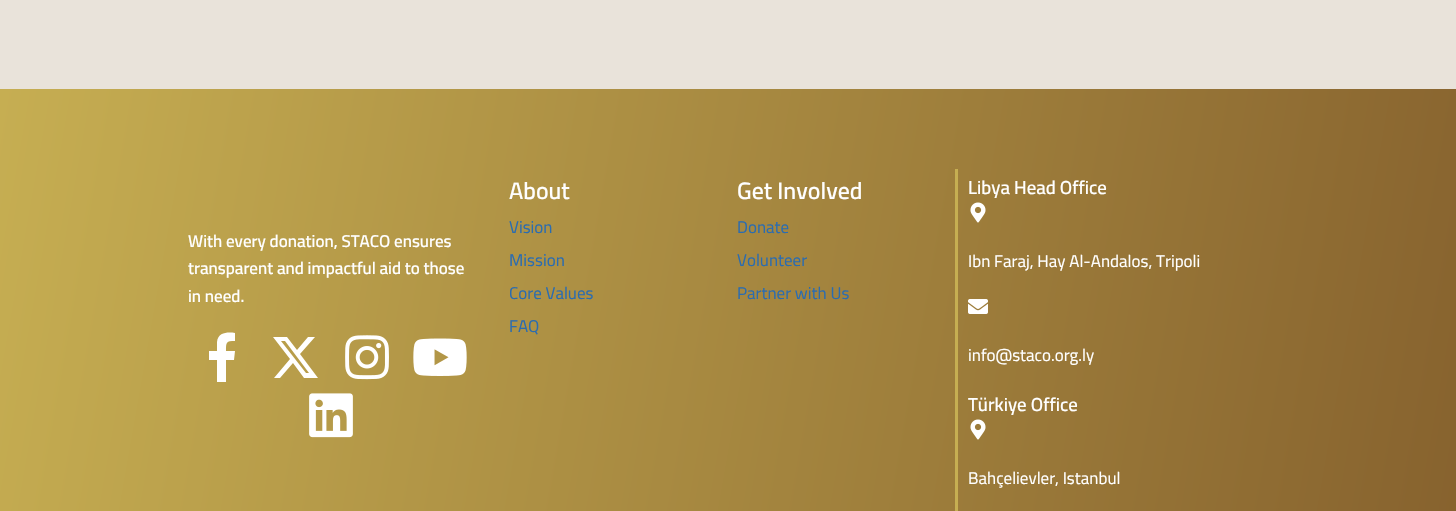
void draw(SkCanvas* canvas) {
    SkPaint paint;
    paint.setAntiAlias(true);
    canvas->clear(0xFFFFFFFF);
    paint.setColor(0xFFE9E3DA);
    canvas->drawRect(SkRect::MakeXYWH(0, 0, 1456, 89), paint);
    {
        const SkColor colors[] = {0xFF85602D, 0xFFC6AE52};
        const float stops[] = {0, 1};
        const SkPoint ends[] = {{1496, 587}, {-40, 317}};
        paint.setShader(SkGradientShader::MakeLinear(ends, colors, stops, 2, SkTileMode::kClamp));
        paint.setAlpha(255);
    }
    canvas->drawRect(SkRect::MakeXYWH(0, 89, 1456, 422), paint);
    SkFont font1(fontMgr->matchFamilyStyle("Cairo", SkFontStyle(600, SkFontStyle::kNormal_Width, SkFontStyle::kUpright_Slant)), 17);
    font1.setSubpixel(true);
    paint.setShader(nullptr);
    paint.setColor(0xFFFFFFFF);
    canvas->drawString("With every donation, STACO ensures", 188, 247, font1, paint);
    canvas->drawString("transparent and impactful aid to those", 188, 274, font1, paint);
    canvas->drawString("in need.", 188, 302, font1, paint);
    canvas->drawPath(SkPathBuilder().moveTo(234, 360).lineTo(226, 360).lineTo(226, 382).lineTo(217, 382).lineTo(217, 360).lineTo(209, 360).lineTo(209, 351).lineTo(217, 351).lineTo(217, 342).cubicTo(218, 332, 228, 332, 235, 333).lineTo(235, 341).cubicTo(226, 341, 226, 342, 226, 351).lineTo(235, 351).close().detach(), paint);
    canvas->drawPath(SkPathBuilder().moveTo(308, 337).lineTo(315, 337).lineTo(300, 354).lineTo(318, 378).lineTo(304, 378).lineTo(293, 363).lineTo(280, 378).lineTo(274, 378).lineTo(290, 359).lineTo(273, 337).lineTo(287, 337).lineTo(297, 350).close().moveTo(306, 373).lineTo(309, 373).lineTo(285, 341).lineTo(281, 341).close().detach(), paint);
    canvas->drawImageRect(SkImages::DeferredFromEncodedData(SkData::MakeFromFileName("img1.png")), SkRect::MakeXYWH(345, 335, 44, 45), SkSamplingOptions());
    canvas->drawImageRect(SkImages::DeferredFromEncodedData(SkData::MakeFromFileName("img2.png")), SkRect::MakeXYWH(413, 338, 54, 38), SkSamplingOptions());
    canvas->drawImageRect(SkImages::DeferredFromEncodedData(SkData::MakeFromFileName("img3.png")), SkRect::MakeXYWH(309, 393, 44, 45), SkSamplingOptions());
    SkFont font2(fontMgr->matchFamilyStyle("Cairo", SkFontStyle(600, SkFontStyle::kNormal_Width, SkFontStyle::kUpright_Slant)), 23.75f);
    font2.setSubpixel(true);
    canvas->drawString("About", 509, 199, font2, paint);
    SkFont font3(fontMgr->matchFamilyStyle("Cairo", SkFontStyle::Normal()), 17);
    font3.setSubpixel(true);
    paint.setColor(0xFF2B6CB0);
    canvas->drawString("Vision", 509, 233, font3, paint);
    canvas->drawString("Mission", 509, 266, font3, paint);
    canvas->drawString("Core Values", 509, 299, font3, paint);
    canvas->drawString("FAQ", 509, 332, font3, paint);
    paint.setColor(0xFFFFFFFF);
    canvas->drawString("Get Involved", 737, 199, font2, paint);
    paint.setColor(0xFF2B6CB0);
    canvas->drawString("Donate", 737, 233, font3, paint);
    canvas->drawString("Volunteer", 737, 266, font3, paint);
    canvas->drawString("Partner with Us", 737, 299, font3, paint);
    paint.setColor(0xFFC6AE52);
    canvas->drawRect(SkRect::MakeXYWH(955, 169, 3, 342), paint);
    SkFont font4(fontMgr->matchFamilyStyle("Cairo", SkFontStyle(600, SkFontStyle::kNormal_Width, SkFontStyle::kUpright_Slant)), 18.75f);
    font4.setSubpixel(true);
    paint.setColor(0xFFFFFFFF);
    canvas->drawString("Libya Head Office", 968, 194, font4, paint);
    canvas->drawImageRect(SkImages::DeferredFromEncodedData(SkData::MakeFromFileName("img4.png")), SkRect::MakeXYWH(970, 202, 16, 21), SkSamplingOptions());
    canvas->drawString("Ibn Faraj, Hay Al-Andalos, Tripoli", 968, 267, font3, paint);
    canvas->drawImageRect(SkImages::DeferredFromEncodedData(SkData::MakeFromFileName("img5.png")), SkRect::MakeXYWH(968, 299, 20, 15), SkSamplingOptions());
    canvas->drawString("info@staco.org.ly", 968, 361, font3, paint);
    canvas->drawString("Türkiye Office", 968, 411, font4, paint);
    canvas->drawImageRect(SkImages::DeferredFromEncodedData(SkData::MakeFromFileName("img6.png")), SkRect::MakeXYWH(970, 419, 16, 21), SkSamplingOptions());
    canvas->drawString("Bahçelievler, Istanbul", 968, 484, font3, paint);
}
